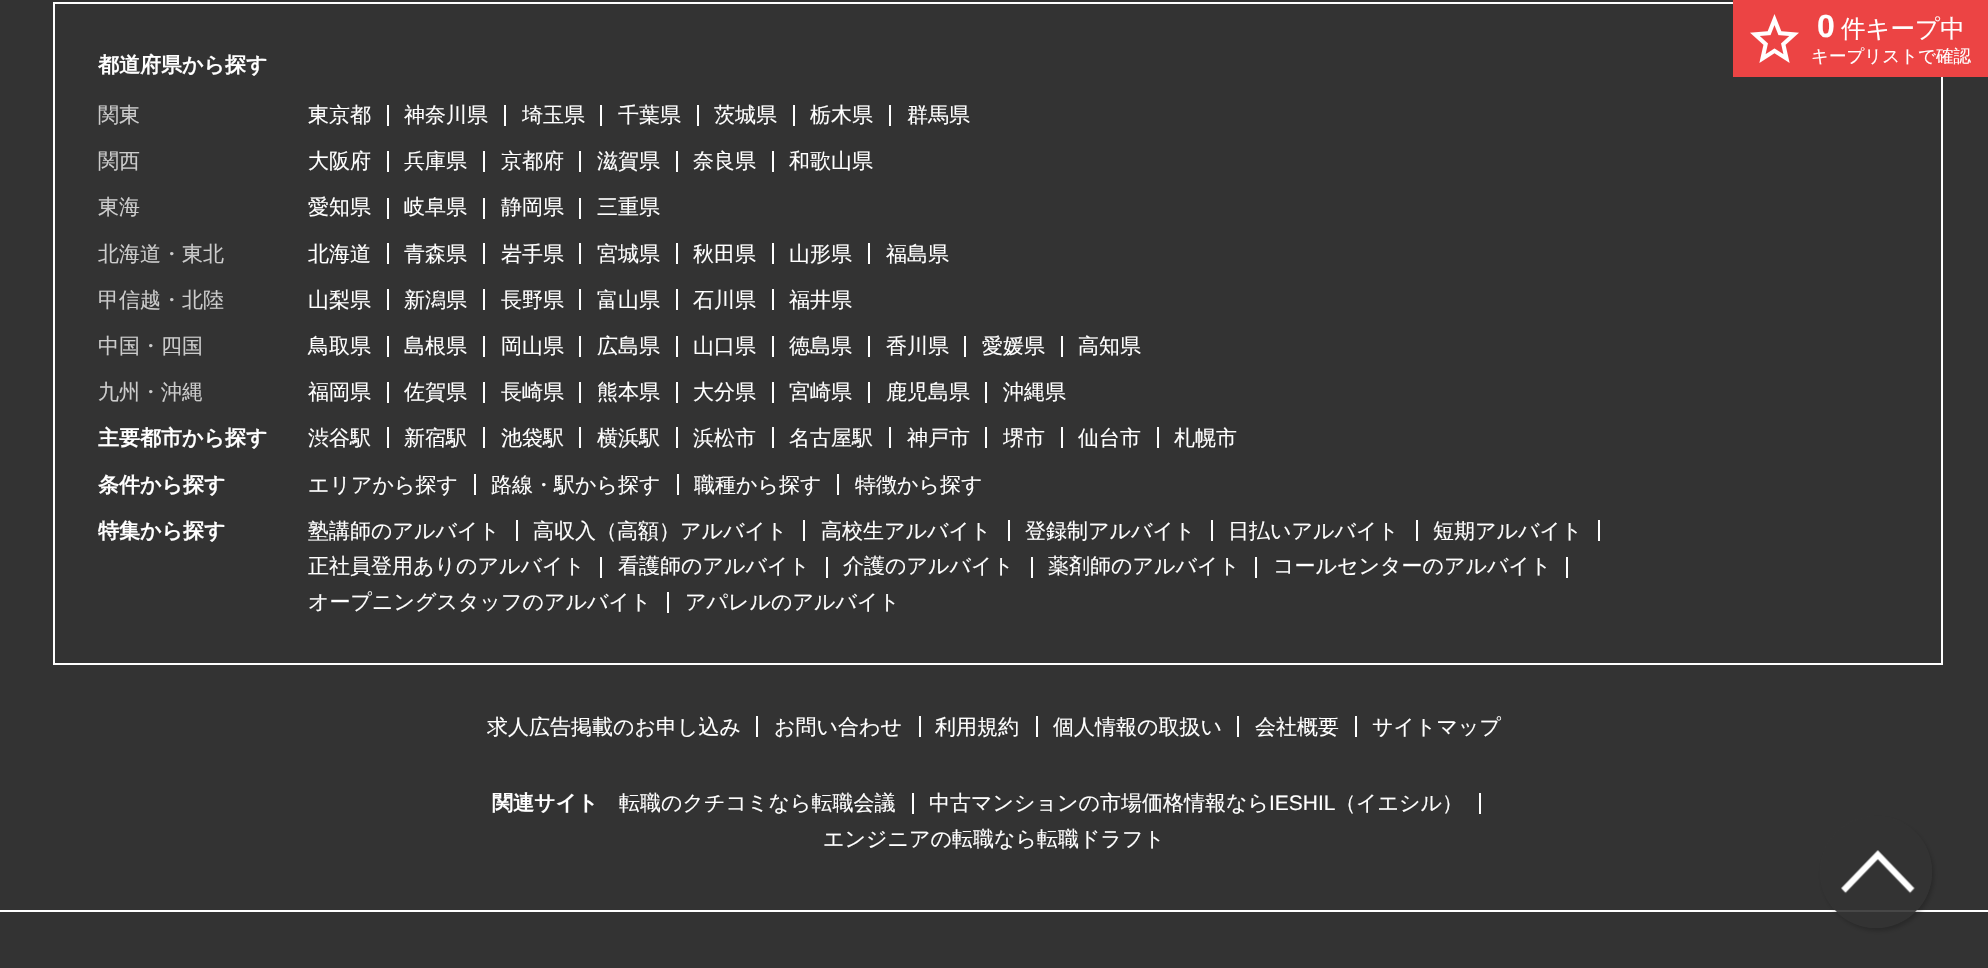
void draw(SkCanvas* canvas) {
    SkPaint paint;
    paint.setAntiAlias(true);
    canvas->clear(0xFFFFFFFF);
    paint.setColor(0xFF333333);
    canvas->drawRect(SkRect::MakeXYWH(0, 0, 1988, 910), paint);
    paint.setStyle(SkPaint::kStroke_Style);
    paint.setStrokeWidth(2);
    paint.setColor(0xFFFFFFFF);
    canvas->drawRect(SkRect::MakeXYWH(54, 3, 1888, 661), paint);
    paint.setStyle(SkPaint::kFill_Style);
    paint.setColor(0xFFEC4444);
    canvas->drawRect(SkRect::MakeXYWH(1733, 0, 255, 77), paint);
    canvas->drawImageRect(SkImages::DeferredFromEncodedData(SkData::MakeFromFileName("img1.png")), SkRect::MakeXYWH(1750, 14, 49, 49), SkSamplingOptions());
    SkFont font1(fontMgr->matchFamilyStyle("Liberation Sans", SkFontStyle::Bold()), 32);
    font1.setSubpixel(true);
    paint.setColor(0xFFFFFFFF);
    canvas->drawString("0", 1817, 37, font1, paint);
    SkFont font2(fontMgr->matchFamilyStyle("WenQuanYi Zen Hei", SkFontStyle(500, SkFontStyle::kNormal_Width, SkFontStyle::kUpright_Slant)), 24.5f);
    font2.setSubpixel(true);
    canvas->drawString("件キープ中", 1841, 37, font2, paint);
    SkFont font3(fontMgr->matchFamilyStyle("WenQuanYi Zen Hei", SkFontStyle(500, SkFontStyle::kNormal_Width, SkFontStyle::kUpright_Slant)), 17.5f);
    font3.setSubpixel(true);
    canvas->drawString("キープリストで確認", 1811, 62, font3, paint);
    SkFont font4(fontMgr->matchFamilyStyle("WenQuanYi Zen Hei", SkFontStyle::Bold()), 21);
    font4.setSubpixel(true);
    canvas->drawString("都道府県から探す", 98, 72, font4, paint);
    SkFont font5(fontMgr->matchFamilyStyle("WenQuanYi Zen Hei", SkFontStyle(500, SkFontStyle::kNormal_Width, SkFontStyle::kUpright_Slant)), 21);
    font5.setSubpixel(true);
    paint.setColor(0xFFCCCCCC);
    canvas->drawString("関東", 98, 122, font5, paint);
    paint.setColor(0xFFFFFFFF);
    canvas->drawRect(SkRect::MakeXYWH(387, 105, 2, 21), paint);
    canvas->drawString("東京都", 308, 122, font5, paint);
    canvas->drawRect(SkRect::MakeXYWH(504, 105, 2, 21), paint);
    canvas->drawString("神奈川県", 404, 122, font5, paint);
    canvas->drawRect(SkRect::MakeXYWH(600, 105, 2, 21), paint);
    canvas->drawString("埼玉県", 522, 122, font5, paint);
    canvas->drawRect(SkRect::MakeXYWH(697, 105, 2, 21), paint);
    canvas->drawString("千葉県", 618, 122, font5, paint);
    canvas->drawRect(SkRect::MakeXYWH(793, 105, 2, 21), paint);
    canvas->drawString("茨城県", 714, 122, font5, paint);
    canvas->drawRect(SkRect::MakeXYWH(889, 105, 2, 21), paint);
    canvas->drawString("栃木県", 810, 122, font5, paint);
    canvas->drawString("群馬県", 907, 122, font5, paint);
    paint.setColor(0xFFCCCCCC);
    canvas->drawString("関西", 98, 168, font5, paint);
    paint.setColor(0xFFFFFFFF);
    canvas->drawRect(SkRect::MakeXYWH(387, 151, 2, 21), paint);
    canvas->drawString("大阪府", 308, 168, font5, paint);
    canvas->drawRect(SkRect::MakeXYWH(483, 151, 2, 21), paint);
    canvas->drawString("兵庫県", 404, 168, font5, paint);
    canvas->drawRect(SkRect::MakeXYWH(579, 151, 2, 21), paint);
    canvas->drawString("京都府", 501, 168, font5, paint);
    canvas->drawRect(SkRect::MakeXYWH(676, 151, 2, 21), paint);
    canvas->drawString("滋賀県", 597, 168, font5, paint);
    canvas->drawRect(SkRect::MakeXYWH(772, 151, 2, 21), paint);
    canvas->drawString("奈良県", 693, 168, font5, paint);
    canvas->drawString("和歌山県", 789, 168, font5, paint);
    paint.setColor(0xFFCCCCCC);
    canvas->drawString("東海", 98, 214, font5, paint);
    paint.setColor(0xFFFFFFFF);
    canvas->drawRect(SkRect::MakeXYWH(387, 198, 2, 21), paint);
    canvas->drawString("愛知県", 308, 214, font5, paint);
    canvas->drawRect(SkRect::MakeXYWH(483, 198, 2, 21), paint);
    canvas->drawString("岐阜県", 404, 214, font5, paint);
    canvas->drawRect(SkRect::MakeXYWH(579, 198, 2, 21), paint);
    canvas->drawString("静岡県", 501, 214, font5, paint);
    canvas->drawString("三重県", 597, 214, font5, paint);
    paint.setColor(0xFFCCCCCC);
    canvas->drawString("北海道・東北", 98, 261, font5, paint);
    paint.setColor(0xFFFFFFFF);
    canvas->drawRect(SkRect::MakeXYWH(387, 243, 2, 21), paint);
    canvas->drawString("北海道", 308, 261, font5, paint);
    canvas->drawRect(SkRect::MakeXYWH(483, 243, 2, 21), paint);
    canvas->drawString("青森県", 404, 261, font5, paint);
    canvas->drawRect(SkRect::MakeXYWH(579, 243, 2, 21), paint);
    canvas->drawString("岩手県", 501, 261, font5, paint);
    canvas->drawRect(SkRect::MakeXYWH(676, 243, 2, 21), paint);
    canvas->drawString("宮城県", 597, 261, font5, paint);
    canvas->drawRect(SkRect::MakeXYWH(772, 243, 2, 21), paint);
    canvas->drawString("秋田県", 693, 261, font5, paint);
    canvas->drawRect(SkRect::MakeXYWH(868, 243, 2, 21), paint);
    canvas->drawString("山形県", 789, 261, font5, paint);
    canvas->drawString("福島県", 886, 261, font5, paint);
    paint.setColor(0xFFCCCCCC);
    canvas->drawString("甲信越・北陸", 98, 307, font5, paint);
    paint.setColor(0xFFFFFFFF);
    canvas->drawRect(SkRect::MakeXYWH(387, 289, 2, 21), paint);
    canvas->drawString("山梨県", 308, 307, font5, paint);
    canvas->drawRect(SkRect::MakeXYWH(483, 289, 2, 21), paint);
    canvas->drawString("新潟県", 404, 307, font5, paint);
    canvas->drawRect(SkRect::MakeXYWH(579, 289, 2, 21), paint);
    canvas->drawString("長野県", 501, 307, font5, paint);
    canvas->drawRect(SkRect::MakeXYWH(676, 289, 2, 21), paint);
    canvas->drawString("富山県", 597, 307, font5, paint);
    canvas->drawRect(SkRect::MakeXYWH(772, 289, 2, 21), paint);
    canvas->drawString("石川県", 693, 307, font5, paint);
    canvas->drawString("福井県", 789, 307, font5, paint);
    paint.setColor(0xFFCCCCCC);
    canvas->drawString("中国・四国", 98, 353, font5, paint);
    paint.setColor(0xFFFFFFFF);
    canvas->drawRect(SkRect::MakeXYWH(387, 336, 2, 21), paint);
    canvas->drawString("鳥取県", 308, 353, font5, paint);
    canvas->drawRect(SkRect::MakeXYWH(483, 336, 2, 21), paint);
    canvas->drawString("島根県", 404, 353, font5, paint);
    canvas->drawRect(SkRect::MakeXYWH(579, 336, 2, 21), paint);
    canvas->drawString("岡山県", 501, 353, font5, paint);
    canvas->drawRect(SkRect::MakeXYWH(676, 336, 2, 21), paint);
    canvas->drawString("広島県", 597, 353, font5, paint);
    canvas->drawRect(SkRect::MakeXYWH(772, 336, 2, 21), paint);
    canvas->drawString("山口県", 693, 353, font5, paint);
    canvas->drawRect(SkRect::MakeXYWH(868, 336, 2, 21), paint);
    canvas->drawString("徳島県", 789, 353, font5, paint);
    canvas->drawRect(SkRect::MakeXYWH(964, 336, 2, 21), paint);
    canvas->drawString("香川県", 886, 353, font5, paint);
    canvas->drawRect(SkRect::MakeXYWH(1061, 336, 2, 21), paint);
    canvas->drawString("愛媛県", 982, 353, font5, paint);
    canvas->drawString("高知県", 1078, 353, font5, paint);
    paint.setColor(0xFFCCCCCC);
    canvas->drawString("九州・沖縄", 98, 399, font5, paint);
    paint.setColor(0xFFFFFFFF);
    canvas->drawRect(SkRect::MakeXYWH(387, 382, 2, 21), paint);
    canvas->drawString("福岡県", 308, 399, font5, paint);
    canvas->drawRect(SkRect::MakeXYWH(483, 382, 2, 21), paint);
    canvas->drawString("佐賀県", 404, 399, font5, paint);
    canvas->drawRect(SkRect::MakeXYWH(579, 382, 2, 21), paint);
    canvas->drawString("長崎県", 501, 399, font5, paint);
    canvas->drawRect(SkRect::MakeXYWH(676, 382, 2, 21), paint);
    canvas->drawString("熊本県", 597, 399, font5, paint);
    canvas->drawRect(SkRect::MakeXYWH(772, 382, 2, 21), paint);
    canvas->drawString("大分県", 693, 399, font5, paint);
    canvas->drawRect(SkRect::MakeXYWH(868, 382, 2, 21), paint);
    canvas->drawString("宮崎県", 789, 399, font5, paint);
    canvas->drawRect(SkRect::MakeXYWH(985, 382, 2, 21), paint);
    canvas->drawString("鹿児島県", 886, 399, font5, paint);
    canvas->drawString("沖縄県", 1003, 399, font5, paint);
    canvas->drawString("主要都市から探す", 98, 445, font4, paint);
    canvas->drawRect(SkRect::MakeXYWH(387, 427, 2, 21), paint);
    canvas->drawString("渋谷駅", 308, 445, font5, paint);
    canvas->drawRect(SkRect::MakeXYWH(483, 427, 2, 21), paint);
    canvas->drawString("新宿駅", 404, 445, font5, paint);
    canvas->drawRect(SkRect::MakeXYWH(579, 427, 2, 21), paint);
    canvas->drawString("池袋駅", 501, 445, font5, paint);
    canvas->drawRect(SkRect::MakeXYWH(676, 427, 2, 21), paint);
    canvas->drawString("横浜駅", 597, 445, font5, paint);
    canvas->drawRect(SkRect::MakeXYWH(772, 427, 2, 21), paint);
    canvas->drawString("浜松市", 693, 445, font5, paint);
    canvas->drawRect(SkRect::MakeXYWH(889, 427, 2, 21), paint);
    canvas->drawString("名古屋駅", 789, 445, font5, paint);
    canvas->drawRect(SkRect::MakeXYWH(985, 427, 2, 21), paint);
    canvas->drawString("神戸市", 907, 445, font5, paint);
    canvas->drawRect(SkRect::MakeXYWH(1061, 427, 2, 21), paint);
    canvas->drawString("堺市", 1003, 445, font5, paint);
    canvas->drawRect(SkRect::MakeXYWH(1157, 427, 2, 21), paint);
    canvas->drawString("仙台市", 1078, 445, font5, paint);
    canvas->drawString("札幌市", 1174, 445, font5, paint);
    canvas->drawString("条件から探す", 98, 492, font4, paint);
    canvas->drawRect(SkRect::MakeXYWH(474, 474, 2, 21), paint);
    canvas->drawString("エリアから探す", 308, 492, font5, paint);
    canvas->drawRect(SkRect::MakeXYWH(677, 474, 2, 21), paint);
    canvas->drawString("路線・駅から探す", 491, 492, font5, paint);
    canvas->drawRect(SkRect::MakeXYWH(837, 474, 2, 21), paint);
    canvas->drawString("職種から探す", 694, 492, font5, paint);
    canvas->drawString("特徴から探す", 855, 492, font5, paint);
    canvas->drawString("特集から探す", 98, 538, font4, paint);
    canvas->drawRect(SkRect::MakeXYWH(516, 520, 2, 21), paint);
    canvas->drawString("塾講師のアルバイト", 308, 538, font5, paint);
    canvas->drawRect(SkRect::MakeXYWH(803, 520, 2, 21), paint);
    canvas->drawString("高収入（高額）アルバイト", 533, 538, font5, paint);
    canvas->drawRect(SkRect::MakeXYWH(1008, 520, 2, 21), paint);
    canvas->drawString("高校生アルバイト", 821, 538, font5, paint);
    canvas->drawRect(SkRect::MakeXYWH(1211, 520, 2, 21), paint);
    canvas->drawString("登録制アルバイト", 1025, 538, font5, paint);
    canvas->drawRect(SkRect::MakeXYWH(1416, 520, 2, 21), paint);
    canvas->drawString("日払いアルバイト", 1228, 538, font5, paint);
    canvas->drawRect(SkRect::MakeXYWH(1598, 520, 2, 21), paint);
    canvas->drawString("短期アルバイト", 1433, 538, font5, paint);
    canvas->drawRect(SkRect::MakeXYWH(600, 557, 2, 21), paint);
    canvas->drawString("正社員登用ありのアルバイト", 308, 573, font5, paint);
    canvas->drawRect(SkRect::MakeXYWH(826, 557, 2, 21), paint);
    canvas->drawString("看護師のアルバイト", 618, 573, font5, paint);
    canvas->drawRect(SkRect::MakeXYWH(1031, 557, 2, 21), paint);
    canvas->drawString("介護のアルバイト", 843, 573, font5, paint);
    canvas->drawRect(SkRect::MakeXYWH(1255, 557, 2, 21), paint);
    canvas->drawString("薬剤師のアルバイト", 1048, 573, font5, paint);
    canvas->drawRect(SkRect::MakeXYWH(1566, 557, 2, 21), paint);
    canvas->drawString("コールセンターのアルバイト", 1273, 573, font5, paint);
    canvas->drawRect(SkRect::MakeXYWH(667, 592, 2, 21), paint);
    canvas->drawString("オープニングスタッフのアルバイト", 308, 609, font5, paint);
    canvas->drawString("アパレルのアルバイト", 685, 609, font5, paint);
    canvas->drawRect(SkRect::MakeXYWH(756, 716, 2, 21), paint);
    canvas->drawString("求人広告掲載のお申し込み", 487, 734, font5, paint);
    canvas->drawRect(SkRect::MakeXYWH(919, 716, 2, 21), paint);
    canvas->drawString("お問い合わせ", 774, 734, font5, paint);
    canvas->drawRect(SkRect::MakeXYWH(1036, 716, 2, 21), paint);
    canvas->drawString("利用規約", 935, 734, font5, paint);
    canvas->drawRect(SkRect::MakeXYWH(1237, 716, 2, 21), paint);
    canvas->drawString("個人情報の取扱い", 1053, 734, font5, paint);
    canvas->drawRect(SkRect::MakeXYWH(1355, 716, 2, 21), paint);
    canvas->drawString("会社概要", 1255, 734, font5, paint);
    canvas->drawString("サイトマップ", 1372, 734, font5, paint);
    canvas->drawString("関連サイト", 492, 810, font4, paint);
    canvas->drawRect(SkRect::MakeXYWH(912, 793, 2, 21), paint);
    canvas->drawString("転職のクチコミなら転職会議", 619, 810, font5, paint);
    canvas->drawRect(SkRect::MakeXYWH(1479, 793, 2, 21), paint);
    canvas->drawString("中古マンションの市場価格情報なら", 929, 810, font5, paint);
    SkFont font6(fontMgr->matchFamilyStyle("Liberation Sans", SkFontStyle::Normal()), 21);
    font6.setSubpixel(true);
    canvas->drawString("IESHIL", 1269, 810, font6, paint);
    canvas->drawString("（イエシル）", 1335, 810, font5, paint);
    canvas->drawString("エンジニアの転職なら転職ドラフト", 823, 846, font5, paint);
    paint.setColor(0xFF333333);
    canvas->drawRect(SkRect::MakeXYWH(0, 912, 1988, 56), paint);
    canvas->save();
    canvas->clipPath(SkPathBuilder(SkPathFillType::kEvenOdd).moveTo(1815, 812).lineTo(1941, 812).lineTo(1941, 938).lineTo(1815, 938).close().moveTo(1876, 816).cubicTo(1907, 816, 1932, 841, 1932, 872).cubicTo(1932, 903, 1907, 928, 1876, 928).cubicTo(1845, 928, 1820, 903, 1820, 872).cubicTo(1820, 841, 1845, 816, 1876, 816).close().detach(), true);
    paint.setColor(0x33000000);
    paint.setMaskFilter(SkMaskFilter::MakeBlur(kNormal_SkBlurStyle, 2));
    canvas->drawRoundRect(SkRect::MakeXYWH(1822, 819, 112, 112), 56, 56, paint);
    paint.setMaskFilter(nullptr);
    canvas->restore();
    paint.setColor(0xE6333333);
    canvas->drawCircle(1876, 872, 56, paint);
    canvas->drawImageRect(SkImages::DeferredFromEncodedData(SkData::MakeFromFileName("img2.png")), SkRect::MakeXYWH(1841, 850, 74, 44), SkSamplingOptions());
}
